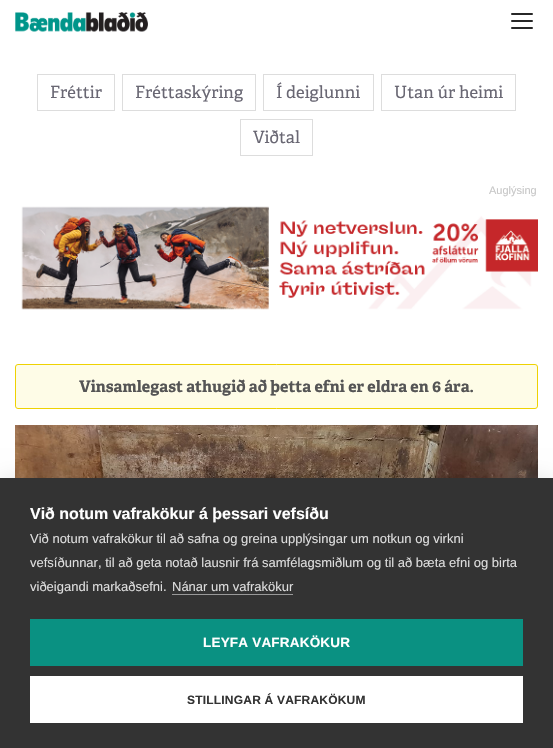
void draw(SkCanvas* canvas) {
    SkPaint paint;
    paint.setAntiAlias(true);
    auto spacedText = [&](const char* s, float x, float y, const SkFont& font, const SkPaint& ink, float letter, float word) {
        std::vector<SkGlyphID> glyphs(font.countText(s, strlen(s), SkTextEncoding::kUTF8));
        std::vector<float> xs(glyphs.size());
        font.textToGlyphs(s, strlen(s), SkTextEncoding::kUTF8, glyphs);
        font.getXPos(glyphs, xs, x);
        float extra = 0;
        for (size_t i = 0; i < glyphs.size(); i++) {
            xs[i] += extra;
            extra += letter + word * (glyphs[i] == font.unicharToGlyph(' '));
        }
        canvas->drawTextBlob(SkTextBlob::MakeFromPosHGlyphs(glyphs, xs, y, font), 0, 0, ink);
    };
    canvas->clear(0xFFFFFFFF);
    canvas->drawImageRect(SkImages::DeferredFromEncodedData(SkData::MakeFromFileName("img1.png")), SkRect::MakeXYWH(15, 12, 133, 20), SkSamplingOptions());
    paint.setColor(0xFF272727);
    canvas->drawRoundRect(SkRect::MakeXYWH(511, 13, 22, 2), 1, 1, paint);
    canvas->drawRoundRect(SkRect::MakeXYWH(511, 20, 22, 2), 1, 1, paint);
    canvas->drawRoundRect(SkRect::MakeXYWH(511, 27, 22, 2), 1, 1, paint);
    paint.setStyle(SkPaint::kStroke_Style);
    paint.setStrokeWidth(1);
    paint.setColor(0xFFDDDDDD);
    canvas->drawRect(SkRect::MakeXYWH(37.5f, 74.5f, 77, 36), paint);
    SkFont font1(fontMgr->matchFamilyStyle("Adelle", SkFontStyle::Normal()), 16.75f);
    font1.setSubpixel(true);
    paint.setStyle(SkPaint::kFill_Style);
    paint.setColor(0xFF696773);
    canvas->drawString("Fréttir", 50, 98, font1, paint);
    paint.setStyle(SkPaint::kStroke_Style);
    paint.setColor(0xFFDDDDDD);
    canvas->drawRect(SkRect::MakeXYWH(122.5f, 74.5f, 133, 36), paint);
    paint.setStyle(SkPaint::kFill_Style);
    paint.setColor(0xFF696773);
    canvas->drawString("Fréttaskýring", 135, 98, font1, paint);
    paint.setStyle(SkPaint::kStroke_Style);
    paint.setColor(0xFFDDDDDD);
    canvas->drawRect(SkRect::MakeXYWH(263.5f, 74.5f, 110, 36), paint);
    paint.setStyle(SkPaint::kFill_Style);
    paint.setColor(0xFF696773);
    canvas->drawString("Í deiglunni", 276, 98, font1, paint);
    paint.setStyle(SkPaint::kStroke_Style);
    paint.setColor(0xFFDDDDDD);
    canvas->drawRect(SkRect::MakeXYWH(381.5f, 74.5f, 134, 36), paint);
    paint.setStyle(SkPaint::kFill_Style);
    paint.setColor(0xFF696773);
    canvas->drawString("Utan úr heimi", 394, 98, font1, paint);
    paint.setStyle(SkPaint::kStroke_Style);
    paint.setColor(0xFFDDDDDD);
    canvas->drawRect(SkRect::MakeXYWH(240.5f, 119.5f, 72, 36), paint);
    paint.setStyle(SkPaint::kFill_Style);
    paint.setColor(0xFF696773);
    canvas->drawString("Viðtal", 253, 143, font1, paint);
    SkFont font2(fontMgr->matchFamilyStyle("Liberation Sans", SkFontStyle::Normal()), 11);
    font2.setSubpixel(true);
    paint.setColor(0xFFC7C7C7);
    canvas->drawString("Auglýsing", 489, 194, font2, paint);
    canvas->drawImageRect(SkImages::DeferredFromEncodedData(SkData::MakeFromFileName("img2.png")), SkRect::MakeXYWH(21, 206, 517, 104), SkSamplingOptions());
    paint.setColor(0xFFFEFCE7);
    canvas->drawRoundRect(SkRect::MakeXYWH(15.5f, 364.5f, 522, 44), 2.5f, 2.5f, paint);
    paint.setStyle(SkPaint::kStroke_Style);
    paint.setColor(0xFFEED202);
    canvas->drawRoundRect(SkRect::MakeXYWH(15.5f, 364.5f, 522, 44), 2.5f, 2.5f, paint);
    SkFont font3(fontMgr->matchFamilyStyle("Adelle", SkFontStyle::Bold()), 16);
    font3.setSubpixel(true);
    paint.setStyle(SkPaint::kFill_Style);
    paint.setColor(0xFF555555);
    canvas->drawString("Vinsamlegast athugið að þetta efni er eldra en 6 ára.", 79, 392, font3, paint);
    canvas->drawImageRect(SkImages::DeferredFromEncodedData(SkData::MakeFromFileName("img3.png")), SkRect::MakeXYWH(15, 425, 523, 53), SkSamplingOptions());
    paint.setColor(0x1A000000);
    paint.setMaskFilter(SkMaskFilter::MakeBlur(kNormal_SkBlurStyle, 10));
    canvas->drawRect(SkRect::MakeXYWH(0, 478, 553, 270), paint);
    paint.setMaskFilter(nullptr);
    paint.setColor(0xFF333333);
    canvas->drawRect(SkRect::MakeXYWH(0, 478, 553, 270), paint);
    SkFont font4(fontMgr->matchFamilyStyle("Liberation Sans", SkFontStyle::Bold()), 16);
    font4.setSubpixel(true);
    paint.setColor(0xFFFFFFFF);
    canvas->drawString("Við notum vafrakökur á þessari vefsíðu", 30, 519, font4, paint);
    SkFont font5(fontMgr->matchFamilyStyle("Liberation Sans", SkFontStyle::Normal()), 13);
    font5.setSubpixel(true);
    paint.setColor(0xFFDDDDDD);
    canvas->drawString("Við notum vafrakökur til að safna og greina upplýsingar um notkun og virkni", 30, 543, font5, paint);
    canvas->drawString("vefsíðunnar, til að geta notað lausnir frá samfélagsmiðlum og til að bæta efni og birta", 30, 567, font5, paint);
    canvas->drawString("viðeigandi markaðsefni.", 30, 591, font5, paint);
    canvas->drawString("Nánar um vafrakökur", 172, 591, font5, paint);
    paint.setColor(0xFF999999);
    canvas->drawRect(SkRect::MakeXYWH(172, 594, 121, 1), paint);
    paint.setColor(0xFF0A9182);
    canvas->drawRect(SkRect::MakeXYWH(30, 619, 493, 47), paint);
    SkFont font6(fontMgr->matchFamilyStyle("Liberation Sans", SkFontStyle::Bold()), 13.5f);
    font6.setSubpixel(true);
    paint.setColor(0xFFFFFFFF);
    spacedText("LEYFA VAFRAKÖKUR", 203, 647, font6, paint, 0.2f, 0);
    canvas->drawRect(SkRect::MakeXYWH(30, 676, 493, 47), paint);
    SkFont font7(fontMgr->matchFamilyStyle("Liberation Sans", SkFontStyle::Bold()), 12);
    font7.setSubpixel(true);
    paint.setColor(0xFF333333);
    spacedText("STILLINGAR Á VAFRAKÖKUM", 187, 704, font7, paint, 0.2f, 0);
}
